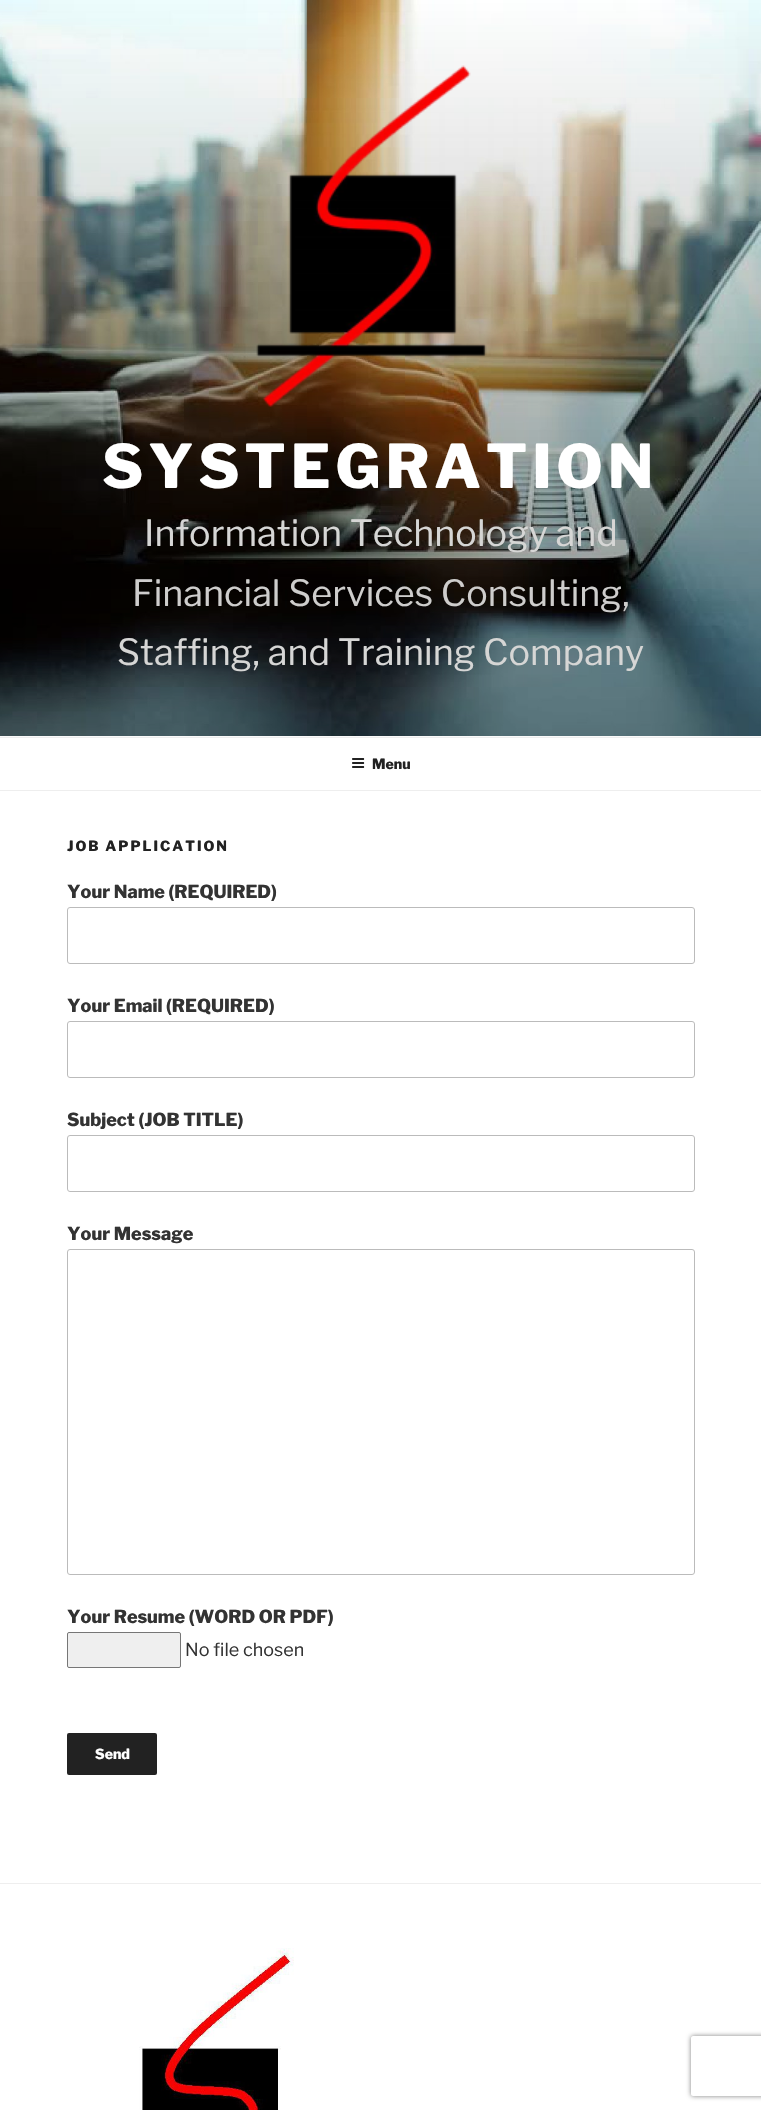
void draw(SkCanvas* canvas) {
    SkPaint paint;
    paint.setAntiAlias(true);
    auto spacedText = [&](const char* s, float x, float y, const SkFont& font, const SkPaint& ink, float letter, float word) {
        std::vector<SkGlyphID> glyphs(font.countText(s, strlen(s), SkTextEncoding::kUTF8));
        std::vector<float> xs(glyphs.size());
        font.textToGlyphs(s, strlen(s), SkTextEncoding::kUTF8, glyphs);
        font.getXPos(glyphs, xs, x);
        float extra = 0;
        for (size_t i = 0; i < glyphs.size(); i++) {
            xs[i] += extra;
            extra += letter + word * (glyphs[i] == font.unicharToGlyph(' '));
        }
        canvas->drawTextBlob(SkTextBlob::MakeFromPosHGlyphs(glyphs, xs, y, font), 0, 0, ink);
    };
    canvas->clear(0xFFFFFFFF);
    paint.setColor(0xFFFAFAFA);
    canvas->drawRect(SkRect::MakeXYWH(0, 736, 761, 1), paint);
    canvas->drawImageRect(SkImages::DeferredFromEncodedData(SkData::MakeFromFileName("img1.png")), SkRect::MakeXYWH(0, 0, 761, 736), SkSamplingOptions());
    canvas->drawImageRect(SkImages::DeferredFromEncodedData(SkData::MakeFromFileName("img2.png")), SkRect::MakeXYWH(256, 65, 231, 342), SkSamplingOptions());
    SkFont font1(fontMgr->matchFamilyStyle("Libre Franklin", SkFontStyle(800, SkFontStyle::kNormal_Width, SkFontStyle::kUpright_Slant)), 60);
    font1.setSubpixel(true);
    paint.setColor(0xFFFFFFFF);
    spacedText("SYSTEGRATION", 102, 488, font1, paint, 4.75f, 0);
    SkFont font2(fontMgr->matchFamilyStyle("Libre Franklin", SkFontStyle::Normal()), 36);
    font2.setSubpixel(true);
    paint.setColor(0xFFD6D6D5);
    canvas->drawString("Information Technology and", 144, 546, font2, paint);
    paint.setColor(0xFFCECDCC);
    canvas->drawString("Financial Services Consulting,", 132, 606, font2, paint);
    paint.setColor(0xFFD6D6D5);
    canvas->drawString("Staffing, and Training Company", 117, 665, font2, paint);
    paint.setColor(0xFFEEEEEE);
    canvas->drawRect(SkRect::MakeXYWH(0, 737, 761, 1), paint);
    canvas->drawRect(SkRect::MakeXYWH(0, 790, 761, 1), paint);
    canvas->drawImageRect(SkImages::DeferredFromEncodedData(SkData::MakeFromFileName("img3.png")), SkRect::MakeXYWH(352, 758, 13, 10), SkSamplingOptions());
    SkFont font3(fontMgr->matchFamilyStyle("Libre Franklin", SkFontStyle(800, SkFontStyle::kNormal_Width, SkFontStyle::kUpright_Slant)), 14);
    font3.setSubpixel(true);
    paint.setColor(0xFF222222);
    canvas->drawString("Menu", 372, 769, font3, paint);
    spacedText("JOB APPLICATION", 67, 851, font3, paint, 2, 0);
    SkFont font4(fontMgr->matchFamilyStyle("Libre Franklin", SkFontStyle(800, SkFontStyle::kNormal_Width, SkFontStyle::kUpright_Slant)), 18);
    font4.setSubpixel(true);
    paint.setColor(0xFF333333);
    canvas->drawString("Your Name (REQUIRED)", 67, 898, font4, paint);
    paint.setStyle(SkPaint::kStroke_Style);
    paint.setStrokeWidth(1);
    paint.setColor(0xFFBBBBBB);
    canvas->drawRoundRect(SkRect::MakeXYWH(67.5f, 907.5f, 627, 56), 2.5f, 2.5f, paint);
    paint.setStyle(SkPaint::kFill_Style);
    paint.setColor(0xFF333333);
    canvas->drawString("Your Email (REQUIRED)", 67, 1012, font4, paint);
    paint.setStyle(SkPaint::kStroke_Style);
    paint.setColor(0xFFBBBBBB);
    canvas->drawRoundRect(SkRect::MakeXYWH(67.5f, 1021.5f, 627, 56), 2.5f, 2.5f, paint);
    paint.setStyle(SkPaint::kFill_Style);
    paint.setColor(0xFF333333);
    canvas->drawString("Subject (JOB TITLE)", 67, 1126, font4, paint);
    paint.setStyle(SkPaint::kStroke_Style);
    paint.setColor(0xFFBBBBBB);
    canvas->drawRoundRect(SkRect::MakeXYWH(67.5f, 1135.5f, 627, 56), 2.5f, 2.5f, paint);
    paint.setStyle(SkPaint::kFill_Style);
    paint.setColor(0xFF333333);
    canvas->drawString("Your Message", 67, 1240, font4, paint);
    paint.setStyle(SkPaint::kStroke_Style);
    paint.setColor(0xFFBBBBBB);
    canvas->drawRoundRect(SkRect::MakeXYWH(67.5f, 1249.5f, 627, 325), 2.5f, 2.5f, paint);
    paint.setStyle(SkPaint::kFill_Style);
    paint.setColor(0xFF333333);
    canvas->drawString("Your Resume (WORD OR PDF)", 67, 1623, font4, paint);
    paint.setColor(0xFFEFEFEF);
    canvas->drawRoundRect(SkRect::MakeXYWH(67.5f, 1632.5f, 113, 35), 1.5f, 1.5f, paint);
    paint.setStyle(SkPaint::kStroke_Style);
    paint.setColor(0xFF767676);
    canvas->drawRoundRect(SkRect::MakeXYWH(67.5f, 1632.5f, 113, 35), 1.5f, 1.5f, paint);
    SkFont font5(fontMgr->matchFamilyStyle("Libre Franklin", SkFontStyle::Normal()), 18);
    font5.setSubpixel(true);
    paint.setStyle(SkPaint::kFill_Style);
    paint.setColor(0xFF333333);
    canvas->drawString("No file chosen", 185, 1656, font5, paint);
    paint.setColor(0xFF222222);
    canvas->drawRoundRect(SkRect::MakeXYWH(67, 1733, 90, 42), 2, 2, paint);
    paint.setColor(0xFFFFFFFF);
    canvas->drawString("Send", 95, 1759, font3, paint);
    paint.setColor(0xFFEEEEEE);
    canvas->drawRect(SkRect::MakeXYWH(0, 1883, 761, 1), paint);
    canvas->drawImageRect(SkImages::DeferredFromEncodedData(SkData::MakeFromFileName("img4.png")), SkRect::MakeXYWH(139, 1948, 155, 162), SkSamplingOptions());
    canvas->save();
    canvas->clipPath(SkPathBuilder(SkPathFillType::kEvenOdd).moveTo(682, 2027).lineTo(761, 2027).lineTo(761, 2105).lineTo(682, 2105).close().moveTo(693, 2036).lineTo(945, 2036).cubicTo(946, 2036, 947, 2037, 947, 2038).lineTo(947, 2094).cubicTo(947, 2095, 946, 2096, 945, 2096).lineTo(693, 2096).cubicTo(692, 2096, 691, 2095, 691, 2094).lineTo(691, 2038).cubicTo(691, 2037, 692, 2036, 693, 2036).close().detach(), true);
    paint.setColor(0xFF808080);
    paint.setMaskFilter(SkMaskFilter::MakeBlur(kNormal_SkBlurStyle, 2.5f));
    canvas->drawRoundRect(SkRect::MakeXYWH(691, 2036, 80, 60), 2, 2, paint);
    paint.setMaskFilter(nullptr);
    canvas->restore();
}
